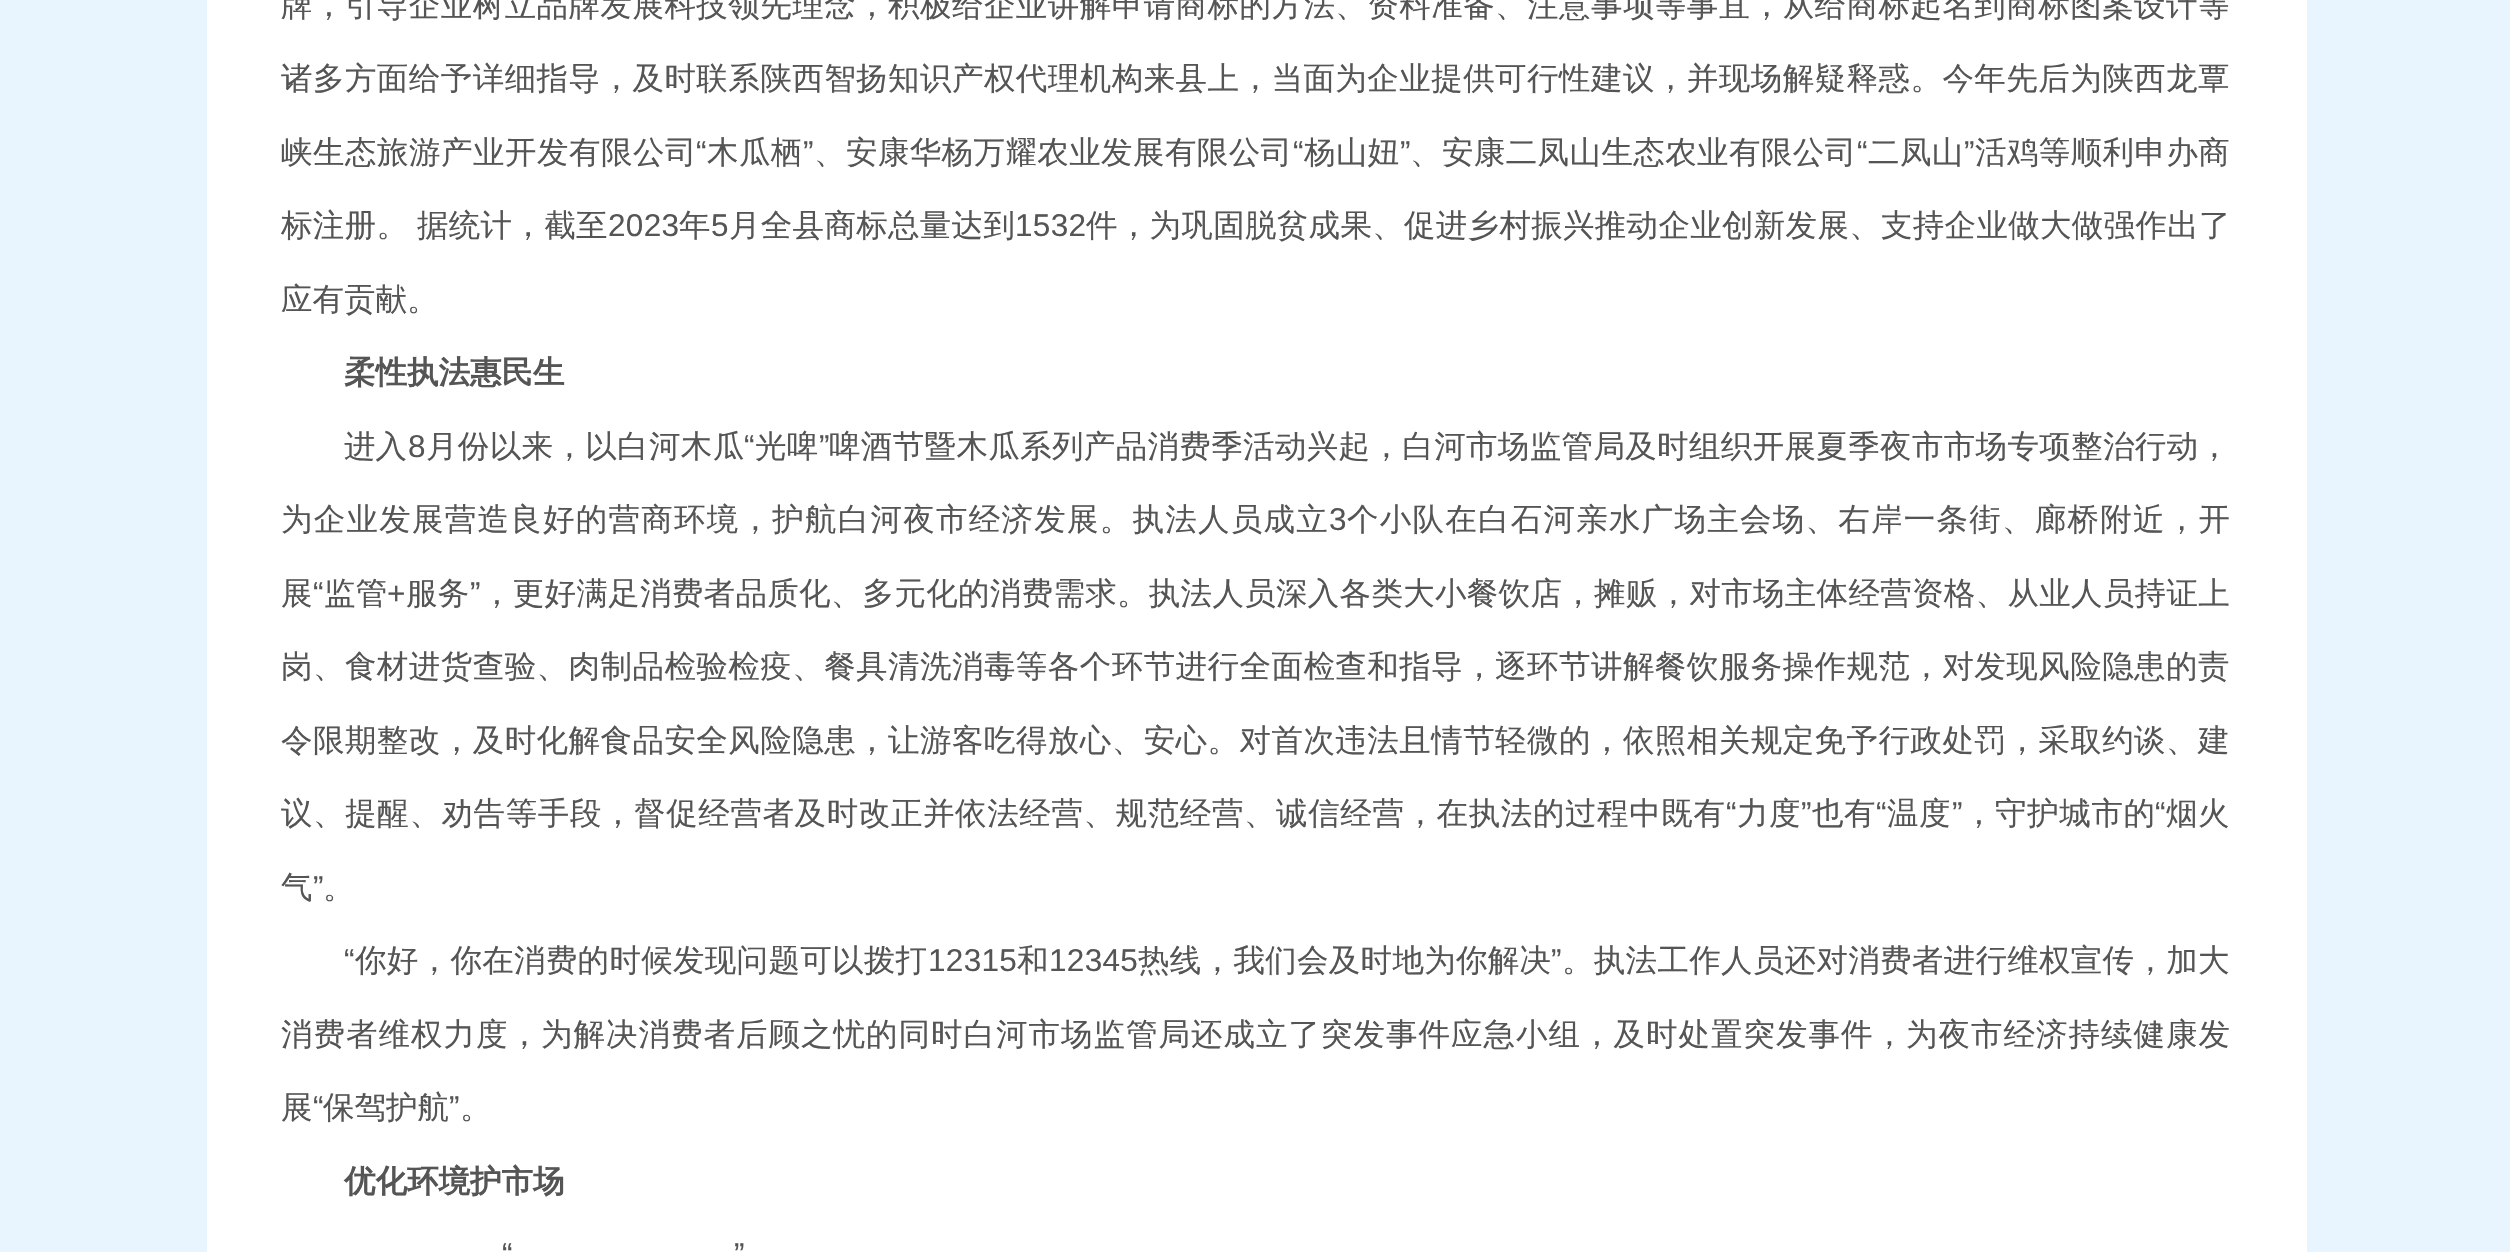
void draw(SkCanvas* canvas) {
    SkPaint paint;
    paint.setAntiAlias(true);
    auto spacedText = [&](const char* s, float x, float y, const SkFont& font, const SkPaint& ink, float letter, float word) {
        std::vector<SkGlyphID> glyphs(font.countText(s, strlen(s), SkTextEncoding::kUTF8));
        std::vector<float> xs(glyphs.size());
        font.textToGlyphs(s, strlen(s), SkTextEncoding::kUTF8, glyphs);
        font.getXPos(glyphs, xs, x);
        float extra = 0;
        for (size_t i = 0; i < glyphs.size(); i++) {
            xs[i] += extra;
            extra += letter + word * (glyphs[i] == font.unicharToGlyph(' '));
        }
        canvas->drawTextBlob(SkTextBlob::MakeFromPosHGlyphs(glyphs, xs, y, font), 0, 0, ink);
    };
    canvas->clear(0xFFE8F5FF);
    paint.setColor(0xFFFFFFFF);
    canvas->drawRect(SkRect::MakeXYWH(207, 0, 2100, 1252), paint);
    SkFont font1(fontMgr->matchFamilyStyle("WenQuanYi Zen Hei", SkFontStyle(500, SkFontStyle::kNormal_Width, SkFontStyle::kUpright_Slant)), 31.5f);
    font1.setSubpixel(true);
    paint.setColor(0xFF555555);
    spacedText("牌，引导企业树立品牌发展科技领先理念，积极给企业讲解申请商标的方法、资料准备、注意事项等事宜，从给商标起名到商标图案设计等", 281, 16, font1, paint, 0.45f, 0);
    spacedText("诸多方面给予详细指导，及时联系陕西智扬知识产权代理机构来县上，当面为企业提供可行性建议，并现场解疑释惑。今年先后为陕西龙覃", 281, 89, font1, paint, 0.45f, 0);
    spacedText("峡生态旅游产业开发有限公司", 281, 163, font1, paint, 0.5f, 0);
    SkFont font2(fontMgr->matchFamilyStyle("Liberation Sans", SkFontStyle::Normal()), 31.5f);
    font2.setSubpixel(true);
    spacedText("“", 696, 163, font2, paint, 0.4f, 0);
    spacedText("木瓜栖", 707, 163, font1, paint, 0.4f, 0);
    spacedText("”", 803, 163, font2, paint, 0.4f, 0);
    spacedText("、安康华杨万耀农业发展有限公司", 814, 163, font1, paint, 0.4f, 0);
    spacedText("“", 1293, 163, font2, paint, 0.4f, 0);
    spacedText("杨山妞", 1304, 163, font1, paint, 0.4f, 0);
    spacedText("”", 1400, 163, font2, paint, 0.4f, 0);
    spacedText("、安康二凤山生态农业有限公司", 1410, 163, font1, paint, 0.4f, 0);
    spacedText("“", 1857, 163, font2, paint, 0.4f, 0);
    spacedText("二凤山", 1868, 163, font1, paint, 0.4f, 0);
    spacedText("”", 1964, 163, font2, paint, 0.4f, 0);
    spacedText("活鸡等顺利申办商", 1975, 163, font1, paint, 0.4f, 0);
    spacedText("标注册。 据统计，截至", 281, 236, font1, paint, 0.3f, -1);
    spacedText("2023", 608, 236, font2, paint, 0.3f, 0);
    spacedText("年", 679, 236, font1, paint, 0.3f, 0);
    spacedText("5", 711, 236, font2, paint, 0.3f, 0);
    spacedText("月全县商标总量达到", 729, 236, font1, paint, 0.3f, 0);
    spacedText("1532", 1015, 236, font2, paint, 0.3f, 0);
    spacedText("件，为巩固脱贫成果、促进乡村振兴推动企业创新发展、支持企业做大做强作出了", 1086, 236, font1, paint, 0.3f, 0);
    canvas->drawString("应有贡献。", 281, 310, font1, paint);
    SkFont font3(fontMgr->matchFamilyStyle("WenQuanYi Zen Hei", SkFontStyle::Bold()), 31.5f);
    font3.setSubpixel(true);
    canvas->drawString("柔性执法惠民生", 344, 383, font3, paint);
    canvas->drawString("进入", 344, 457, font1, paint);
    spacedText("8", 408, 457, font2, paint, 0.35f, 0);
    spacedText("月份以来，以白河木瓜", 426, 457, font1, paint, 0.35f, 0);
    spacedText("“", 744, 457, font2, paint, 0.35f, 0);
    spacedText("光啤", 755, 457, font1, paint, 0.35f, 0);
    spacedText("”", 819, 457, font2, paint, 0.35f, 0);
    spacedText("啤酒节暨木瓜系列产品消费季活动兴起，白河市场监管局及时组织开展夏季夜市市场专项整治行动，", 829, 457, font1, paint, 0.35f, 0);
    spacedText("为企业发展营造良好的营商环境，护航白河夜市经济发展。执法人员成立", 281, 530, font1, paint, 1.25f, 0);
    spacedText("3", 1329, 530, font2, paint, 1.25f, 0);
    spacedText("个小队在白石河亲水广场主会场、右岸一条街、廊桥附近，开", 1347, 530, font1, paint, 1.25f, 0);
    spacedText("展", 281, 604, font1, paint, 0.3f, 0);
    spacedText("“", 313, 604, font2, paint, 0.3f, 0);
    spacedText("监管", 324, 604, font1, paint, 0.3f, 0);
    spacedText("+", 387, 604, font2, paint, 0.3f, 0);
    spacedText("服务", 406, 604, font1, paint, 0.3f, 0);
    spacedText("”", 470, 604, font2, paint, 0.3f, 0);
    spacedText("，更好满足消费者品质化、多元化的消费需求。执法人员深入各类大小餐饮店，摊贩，对市场主体经营资格、从业人员持证上", 481, 604, font1, paint, 0.3f, 0);
    spacedText("岗、食材进货查验、肉制品检验检疫、餐具清洗消毒等各个环节进行全面检查和指导，逐环节讲解餐饮服务操作规范，对发现风险隐患的责", 281, 677, font1, paint, 0.45f, 0);
    spacedText("令限期整改，及时化解食品安全风险隐患，让游客吃得放心、安心。对首次违法且情节轻微的，依照相关规定免予行政处罚，采取约谈、建", 281, 751, font1, paint, 0.45f, 0);
    spacedText("议、提醒、劝告等手段，督促经营者及时改正并依法经营、规范经营、诚信经营，在执法的过程中既有", 281, 824, font1, paint, 0.6f, 0);
    spacedText("“", 1726, 824, font2, paint, 0.6f, 0);
    spacedText("力度", 1737, 824, font1, paint, 0.6f, 0);
    spacedText("”", 1801, 824, font2, paint, 0.6f, 0);
    spacedText("也有", 1812, 824, font1, paint, 0.6f, 0);
    spacedText("“", 1876, 824, font2, paint, 0.6f, 0);
    spacedText("温度", 1887, 824, font1, paint, 0.6f, 0);
    spacedText("”", 1952, 824, font2, paint, 0.6f, 0);
    spacedText("，守护城市的", 1963, 824, font1, paint, 0.6f, 0);
    spacedText("“", 2155, 824, font2, paint, 0.6f, 0);
    spacedText("烟火", 2166, 824, font1, paint, 0.6f, 0);
    canvas->drawString("气", 281, 898, font1, paint);
    canvas->drawString("”", 313, 898, font2, paint);
    canvas->drawString("。", 323, 898, font1, paint);
    spacedText("“", 344, 971, font2, paint, 0.3f, 0);
    spacedText("你好，你在消费的时候发现问题可以拨打", 355, 971, font1, paint, 0.3f, 0);
    spacedText("12315", 928, 971, font2, paint, 0.3f, 0);
    spacedText("和", 1017, 971, font1, paint, 0.3f, 0);
    spacedText("12345", 1049, 971, font2, paint, 0.3f, 0);
    spacedText("热线，我们会及时地为你解决", 1138, 971, font1, paint, 0.3f, 0);
    spacedText("”", 1551, 971, font2, paint, 0.3f, 0);
    spacedText("。执法工作人员还对消费者进行维权宣传，加大", 1562, 971, font1, paint, 0.3f, 0);
    spacedText("消费者维权力度，为解决消费者后顾之忧的同时白河市场监管局还成立了突发事件应急小组，及时处置突发事件，为夜市经济持续健康发", 281, 1045, font1, paint, 1, 0);
    canvas->drawString("展", 281, 1118, font1, paint);
    canvas->drawString("“", 313, 1118, font2, paint);
    canvas->drawString("保驾护航", 323, 1118, font1, paint);
    canvas->drawString("”", 449, 1118, font2, paint);
    canvas->drawString("。", 460, 1118, font1, paint);
    canvas->drawString("优化环境护市场", 344, 1192, font3, paint);
    canvas->drawString("“", 502, 1265, font2, paint);
    canvas->drawString("”", 734, 1265, font2, paint);
}
